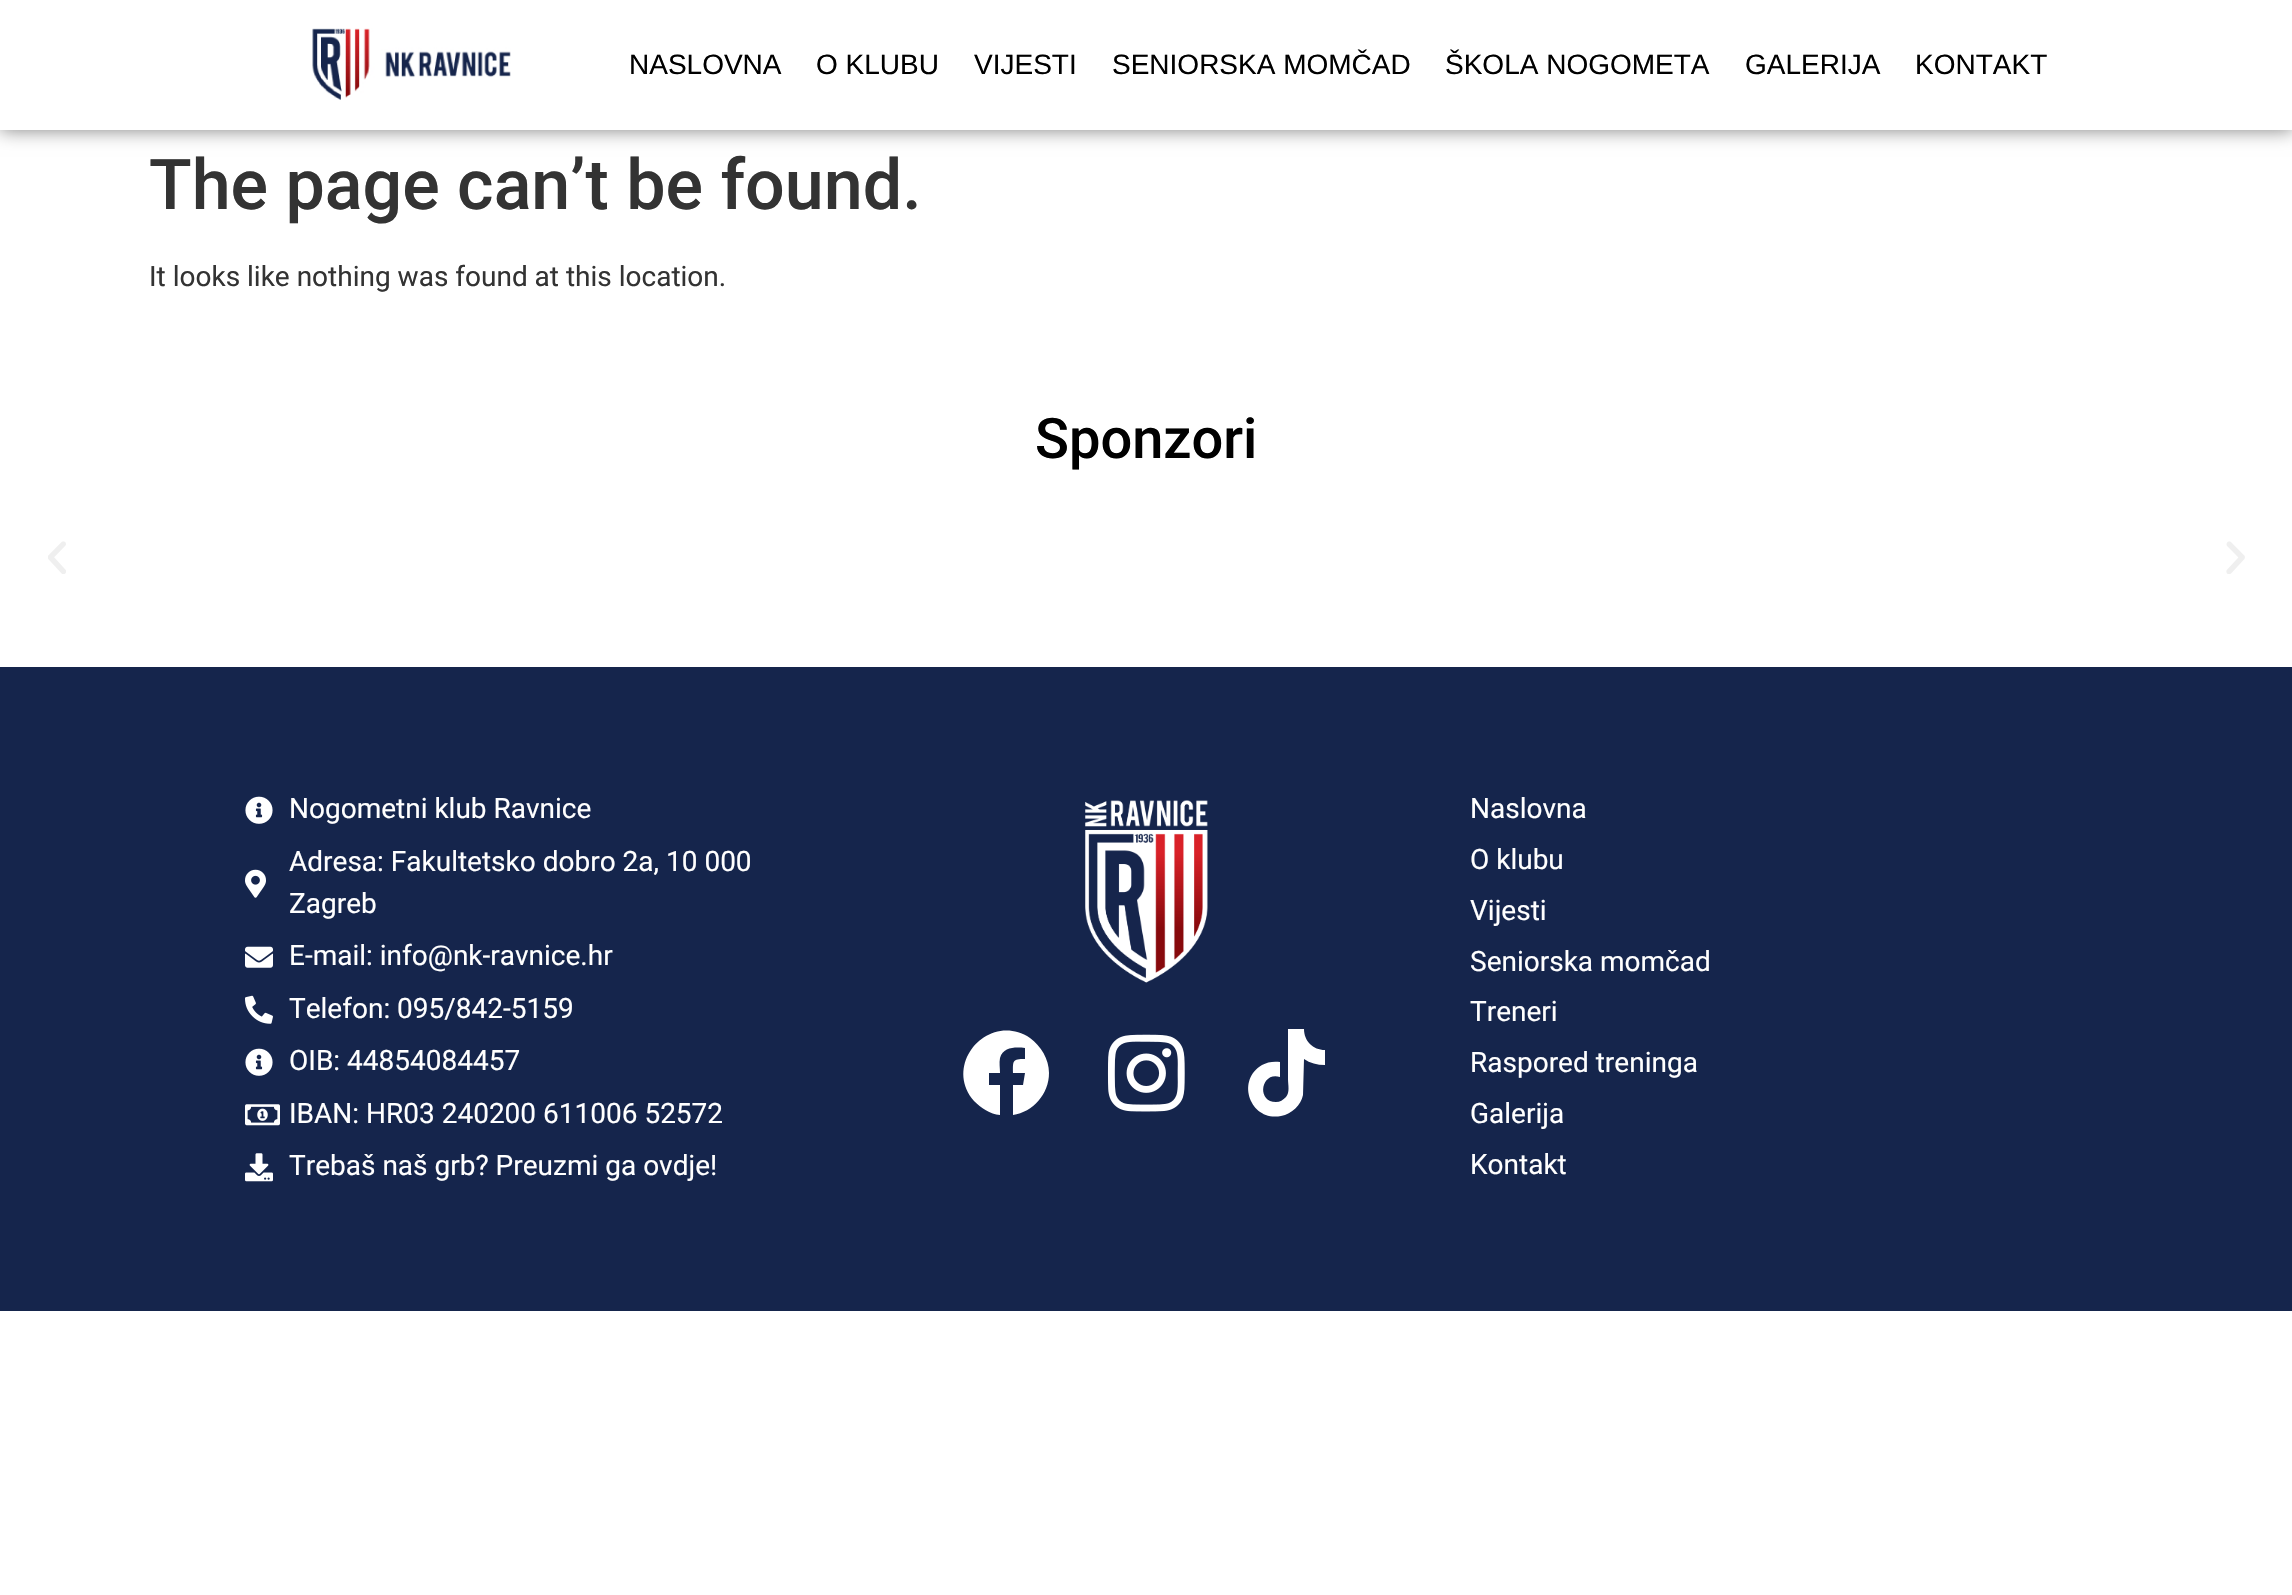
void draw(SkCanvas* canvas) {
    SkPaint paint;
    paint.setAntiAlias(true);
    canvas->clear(0xFFFFFFFF);
    paint.setColor(0x80000000);
    paint.setMaskFilter(SkMaskFilter::MakeBlur(kNormal_SkBlurStyle, 9));
    canvas->drawRect(SkRect::MakeXYWH(0, 0, 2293, 130), paint);
    paint.setMaskFilter(nullptr);
    paint.setColor(0xFFFFFFFF);
    canvas->drawRect(SkRect::MakeXYWH(0, 0, 2292, 130), paint);
    canvas->drawImageRect(SkImages::DeferredFromEncodedData(SkData::MakeFromFileName("img1.png")), SkRect::MakeXYWH(312, 28, 199, 72), SkSamplingOptions());
    SkFont font1(fontMgr->matchFamilyStyle("Liberation Sans", SkFontStyle::Normal()), 28);
    font1.setSubpixel(true);
    paint.setColor(0xFF000000);
    canvas->drawString("NASLOVNA", 629, 74, font1, paint);
    canvas->drawString("O KLUBU", 816, 74, font1, paint);
    canvas->drawString("VIJESTI", 974, 74, font1, paint);
    canvas->drawString("SENIORSKA MOMČAD", 1112, 74, font1, paint);
    canvas->drawString("ŠKOLA NOGOMETA", 1445, 74, font1, paint);
    canvas->drawString("GALERIJA", 1745, 74, font1, paint);
    canvas->drawString("KONTAKT", 1915, 74, font1, paint);
    SkFont font2(fontMgr->matchFamilyStyle("Roboto", SkFontStyle(500, SkFontStyle::kNormal_Width, SkFontStyle::kUpright_Slant)), 70);
    font2.setSubpixel(true);
    paint.setColor(0xFF333333);
    canvas->drawString("The page can’t be found.", 149, 209, font2, paint);
    SkFont font3(fontMgr->matchFamilyStyle("Roboto", SkFontStyle::Normal()), 28);
    font3.setSubpixel(true);
    canvas->drawString("It looks like nothing was found at this location.", 149, 286, font3, paint);
    SkFont font4(fontMgr->matchFamilyStyle("Roboto", SkFontStyle(500, SkFontStyle::kNormal_Width, SkFontStyle::kUpright_Slant)), 56);
    font4.setSubpixel(true);
    paint.setColor(0xFF000000);
    canvas->drawString("Sponzori", 1035, 458, font4, paint);
    canvas->drawImageRect(SkImages::DeferredFromEncodedData(SkData::MakeFromFileName("img2.png")), SkRect::MakeXYWH(48, 541, 18, 33), SkSamplingOptions());
    canvas->drawImageRect(SkImages::DeferredFromEncodedData(SkData::MakeFromFileName("img3.png")), SkRect::MakeXYWH(2226, 541, 19, 33), SkSamplingOptions());
    paint.setColor(0xFF15254C);
    canvas->drawRect(SkRect::MakeXYWH(0, 667, 2292, 644), paint);
    canvas->drawImageRect(SkImages::DeferredFromEncodedData(SkData::MakeFromFileName("img4.png")), SkRect::MakeXYWH(245, 796, 28, 28), SkSamplingOptions());
    paint.setColor(0xFFFFFFFF);
    canvas->drawString("Nogometni klub Ravnice", 289, 818, font3, paint);
    canvas->drawImageRect(SkImages::DeferredFromEncodedData(SkData::MakeFromFileName("img5.png")), SkRect::MakeXYWH(245, 869, 21, 29), SkSamplingOptions());
    canvas->drawString("Adresa: Fakultetsko dobro 2a, 10 000", 289, 871, font3, paint);
    canvas->drawString("Zagreb", 289, 913, font3, paint);
    canvas->drawImageRect(SkImages::DeferredFromEncodedData(SkData::MakeFromFileName("img6.png")), SkRect::MakeXYWH(245, 946, 28, 22), SkSamplingOptions());
    canvas->drawString("E-mail: info@nk-ravnice.hr", 289, 965, font3, paint);
    canvas->drawImageRect(SkImages::DeferredFromEncodedData(SkData::MakeFromFileName("img7.png")), SkRect::MakeXYWH(245, 995, 28, 29), SkSamplingOptions());
    canvas->drawString("Telefon: 095/842-5159", 289, 1018, font3, paint);
    canvas->drawImageRect(SkImages::DeferredFromEncodedData(SkData::MakeFromFileName("img4.png")), SkRect::MakeXYWH(245, 1048, 28, 28), SkSamplingOptions());
    canvas->drawString("OIB: 44854084457", 289, 1070, font3, paint);
    canvas->drawImageRect(SkImages::DeferredFromEncodedData(SkData::MakeFromFileName("img8.png")), SkRect::MakeXYWH(245, 1104, 35, 22), SkSamplingOptions());
    canvas->drawString("IBAN: HR03 240200 611006 52572", 289, 1123, font3, paint);
    canvas->drawImageRect(SkImages::DeferredFromEncodedData(SkData::MakeFromFileName("img9.png")), SkRect::MakeXYWH(245, 1153, 28, 29), SkSamplingOptions());
    canvas->drawString("Trebaš naš grb? Preuzmi ga ovdje!", 289, 1175, font3, paint);
    canvas->drawImageRect(SkImages::DeferredFromEncodedData(SkData::MakeFromFileName("img10.png")), SkRect::MakeXYWH(1085, 800, 123, 183), SkSamplingOptions());
    canvas->drawPath(SkPathBuilder().moveTo(1049, 1073).cubicTo(1049, 1094, 1033, 1112, 1013, 1115).lineTo(1013, 1085).lineTo(1023, 1085).lineTo(1025, 1073).lineTo(1013, 1073).cubicTo(1013, 1061, 1012, 1059, 1025, 1059).lineTo(1025, 1048).cubicTo(1015, 1047, 1003, 1047, 1000, 1058).cubicTo(999, 1063, 1000, 1068, 1000, 1073).lineTo(989, 1073).lineTo(989, 1085).lineTo(1000, 1085).lineTo(1000, 1115).cubicTo(990, 1114, 981, 1108, 974, 1101).cubicTo(942, 1064, 989, 1011, 1030, 1038).cubicTo(1041, 1046, 1049, 1059, 1049, 1073).close().detach(), paint);
    canvas->drawImageRect(SkImages::DeferredFromEncodedData(SkData::MakeFromFileName("img11.png")), SkRect::MakeXYWH(1107, 1034, 78, 78), SkSamplingOptions());
    canvas->drawPath(SkPathBuilder().moveTo(1325, 1065).cubicTo(1317, 1065, 1310, 1063, 1304, 1059).lineTo(1303, 1095).cubicTo(1301, 1105, 1292, 1114, 1281, 1116).cubicTo(1251, 1122, 1235, 1081, 1262, 1065).cubicTo(1267, 1062, 1274, 1061, 1280, 1062).lineTo(1280, 1077).cubicTo(1261, 1071, 1256, 1102, 1276, 1102).cubicTo(1280, 1102, 1283, 1100, 1286, 1097).cubicTo(1290, 1092, 1288, 1085, 1288, 1079).lineTo(1288, 1029).lineTo(1304, 1029).cubicTo(1304, 1041, 1313, 1050, 1325, 1050).close().detach(), paint);
    canvas->drawString("Naslovna", 1470, 818, font3, paint);
    canvas->drawString("O klubu", 1470, 869, font3, paint);
    canvas->drawString("Vijesti", 1470, 920, font3, paint);
    canvas->drawString("Seniorska momčad", 1470, 971, font3, paint);
    canvas->drawString("Treneri", 1470, 1021, font3, paint);
    canvas->drawString("Raspored treninga", 1470, 1072, font3, paint);
    canvas->drawString("Galerija", 1470, 1123, font3, paint);
    canvas->drawString("Kontakt", 1470, 1174, font3, paint);
}
